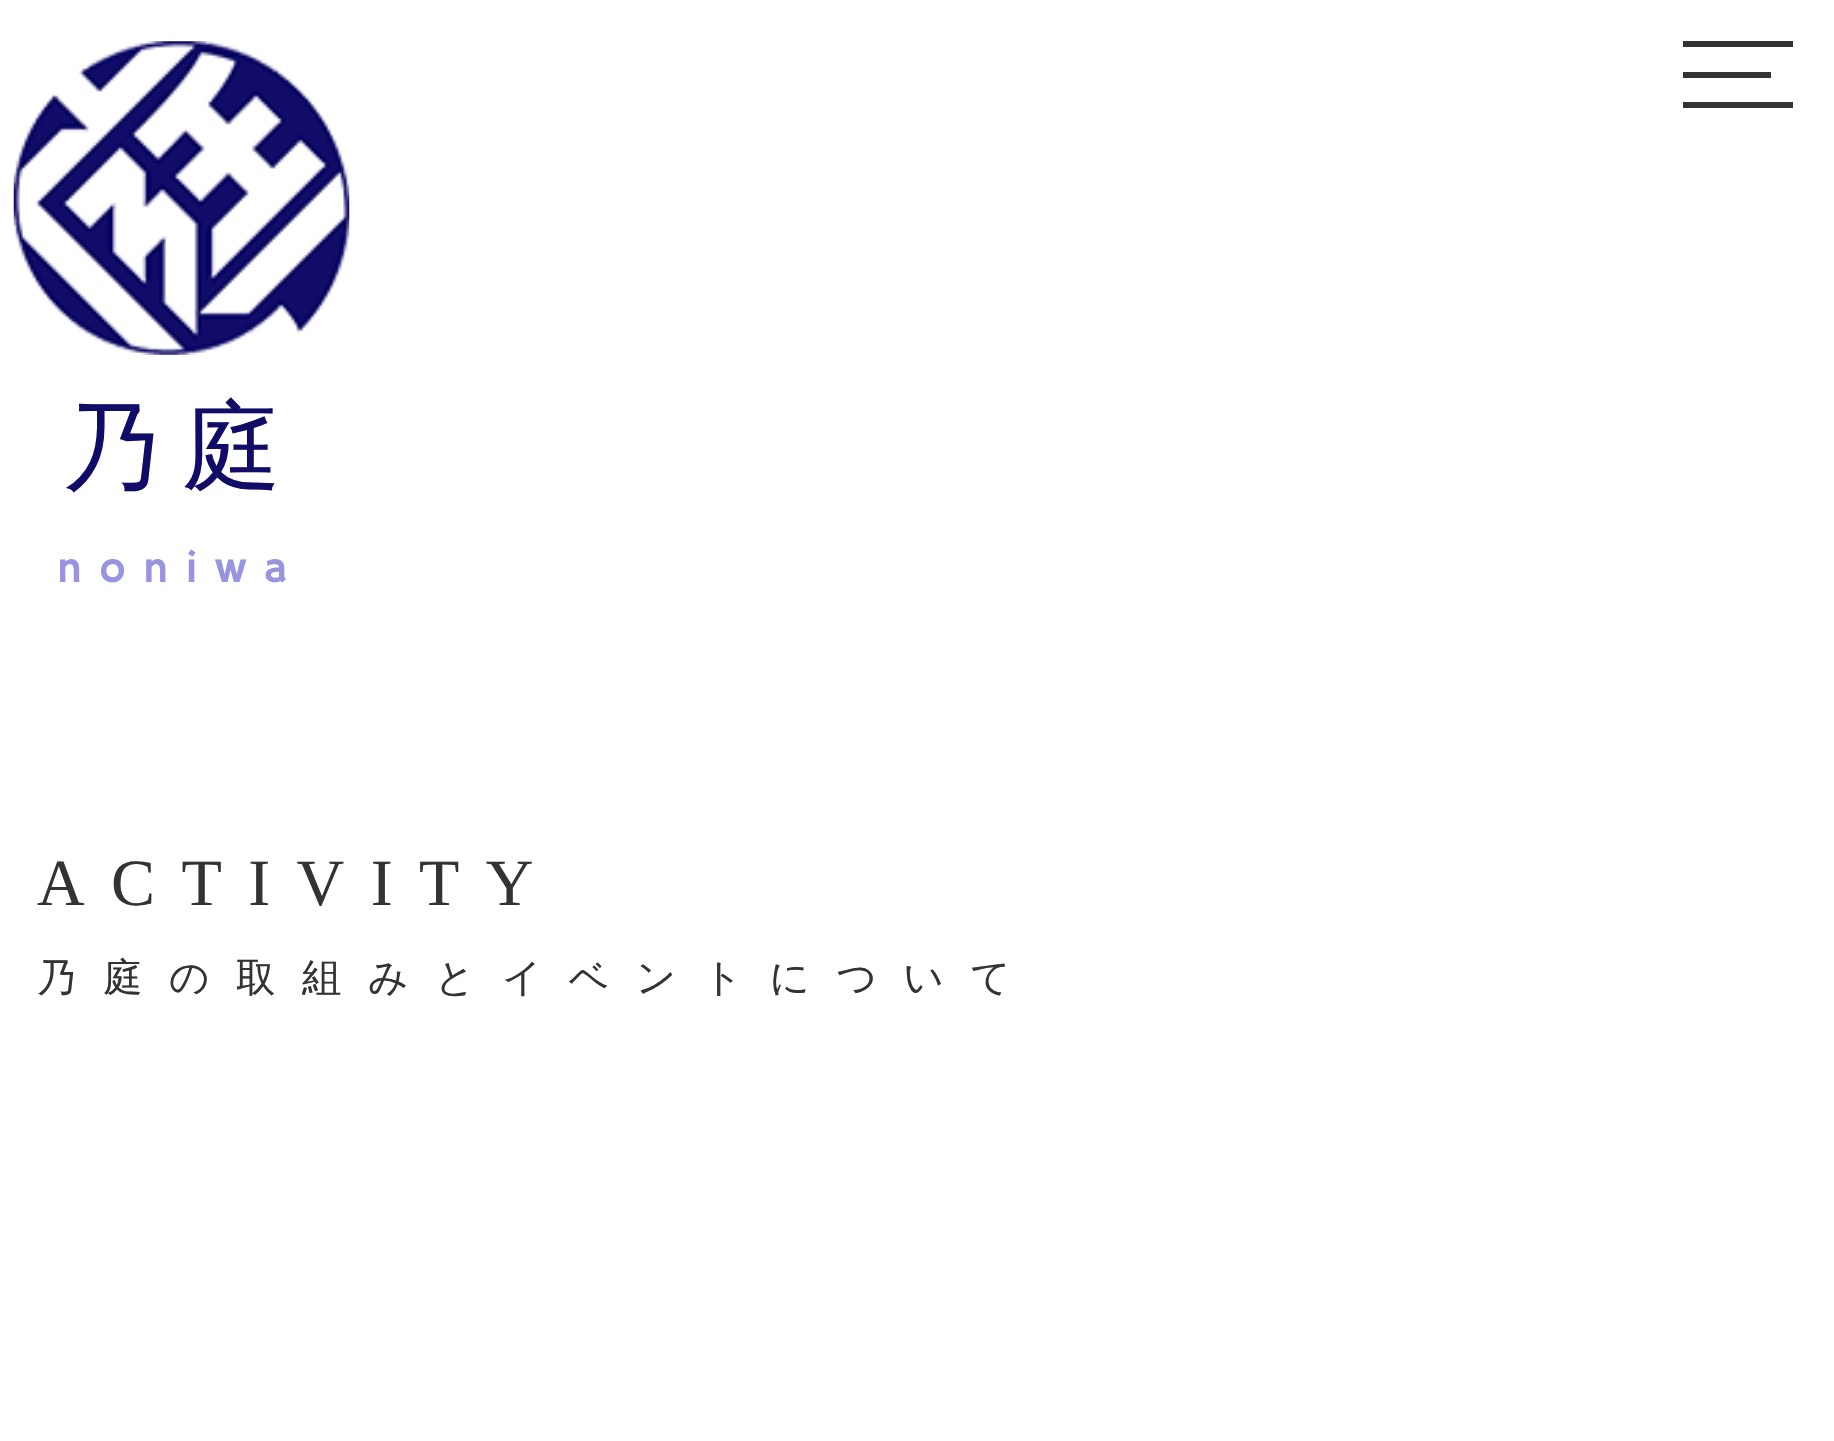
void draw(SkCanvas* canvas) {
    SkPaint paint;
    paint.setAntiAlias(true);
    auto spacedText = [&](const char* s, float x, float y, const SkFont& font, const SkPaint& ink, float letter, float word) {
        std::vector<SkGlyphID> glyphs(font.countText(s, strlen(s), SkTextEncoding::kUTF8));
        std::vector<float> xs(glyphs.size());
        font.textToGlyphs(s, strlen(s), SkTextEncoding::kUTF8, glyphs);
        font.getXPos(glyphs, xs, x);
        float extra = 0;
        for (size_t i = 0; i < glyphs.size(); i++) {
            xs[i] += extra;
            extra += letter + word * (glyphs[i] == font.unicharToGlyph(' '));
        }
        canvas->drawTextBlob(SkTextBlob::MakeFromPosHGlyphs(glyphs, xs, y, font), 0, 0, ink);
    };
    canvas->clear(0xFFFFFFFF);
    paint.setColor(0xFF333333);
    canvas->drawRect(SkRect::MakeXYWH(1683, 41, 110, 6), paint);
    canvas->drawRect(SkRect::MakeXYWH(1683, 72, 88, 6), paint);
    canvas->drawRect(SkRect::MakeXYWH(1683, 102, 110, 6), paint);
    canvas->drawImageRect(SkImages::DeferredFromEncodedData(SkData::MakeFromFileName("img1.png")), SkRect::MakeXYWH(13, 41, 337, 314), SkSamplingOptions());
    SkFont font1(fontMgr->matchFamilyStyle("WenQuanYi Zen Hei", SkFontStyle(500, SkFontStyle::kNormal_Width, SkFontStyle::kUpright_Slant)), 99);
    font1.setSubpixel(true);
    paint.setColor(0xFF110C68);
    spacedText("乃庭", 63, 481, font1, paint, 20, 0);
    SkFont font2(fontMgr->matchFamilyStyle("Hammersmith One", SkFontStyle::Normal()), 44);
    font2.setSubpixel(true);
    paint.setColor(0xFF9994E0);
    spacedText("noniwa", 57, 582, font2, paint, 17.5f, 0);
    SkFont font3(fontMgr->matchFamilyStyle("Liberation Serif", SkFontStyle::Normal()), 66);
    font3.setSubpixel(true);
    paint.setColor(0xFF333333);
    spacedText("ACTIVITY", 37, 905, font3, paint, 26.4f, 0);
    SkFont font4(fontMgr->matchFamilyStyle("WenQuanYi Zen Hei", SkFontStyle(500, SkFontStyle::kNormal_Width, SkFontStyle::kUpright_Slant)), 39.6f);
    font4.setSubpixel(true);
    spacedText("乃庭の取組みとイベントについて", 37, 991, font4, paint, 26.4f, 0);
}
